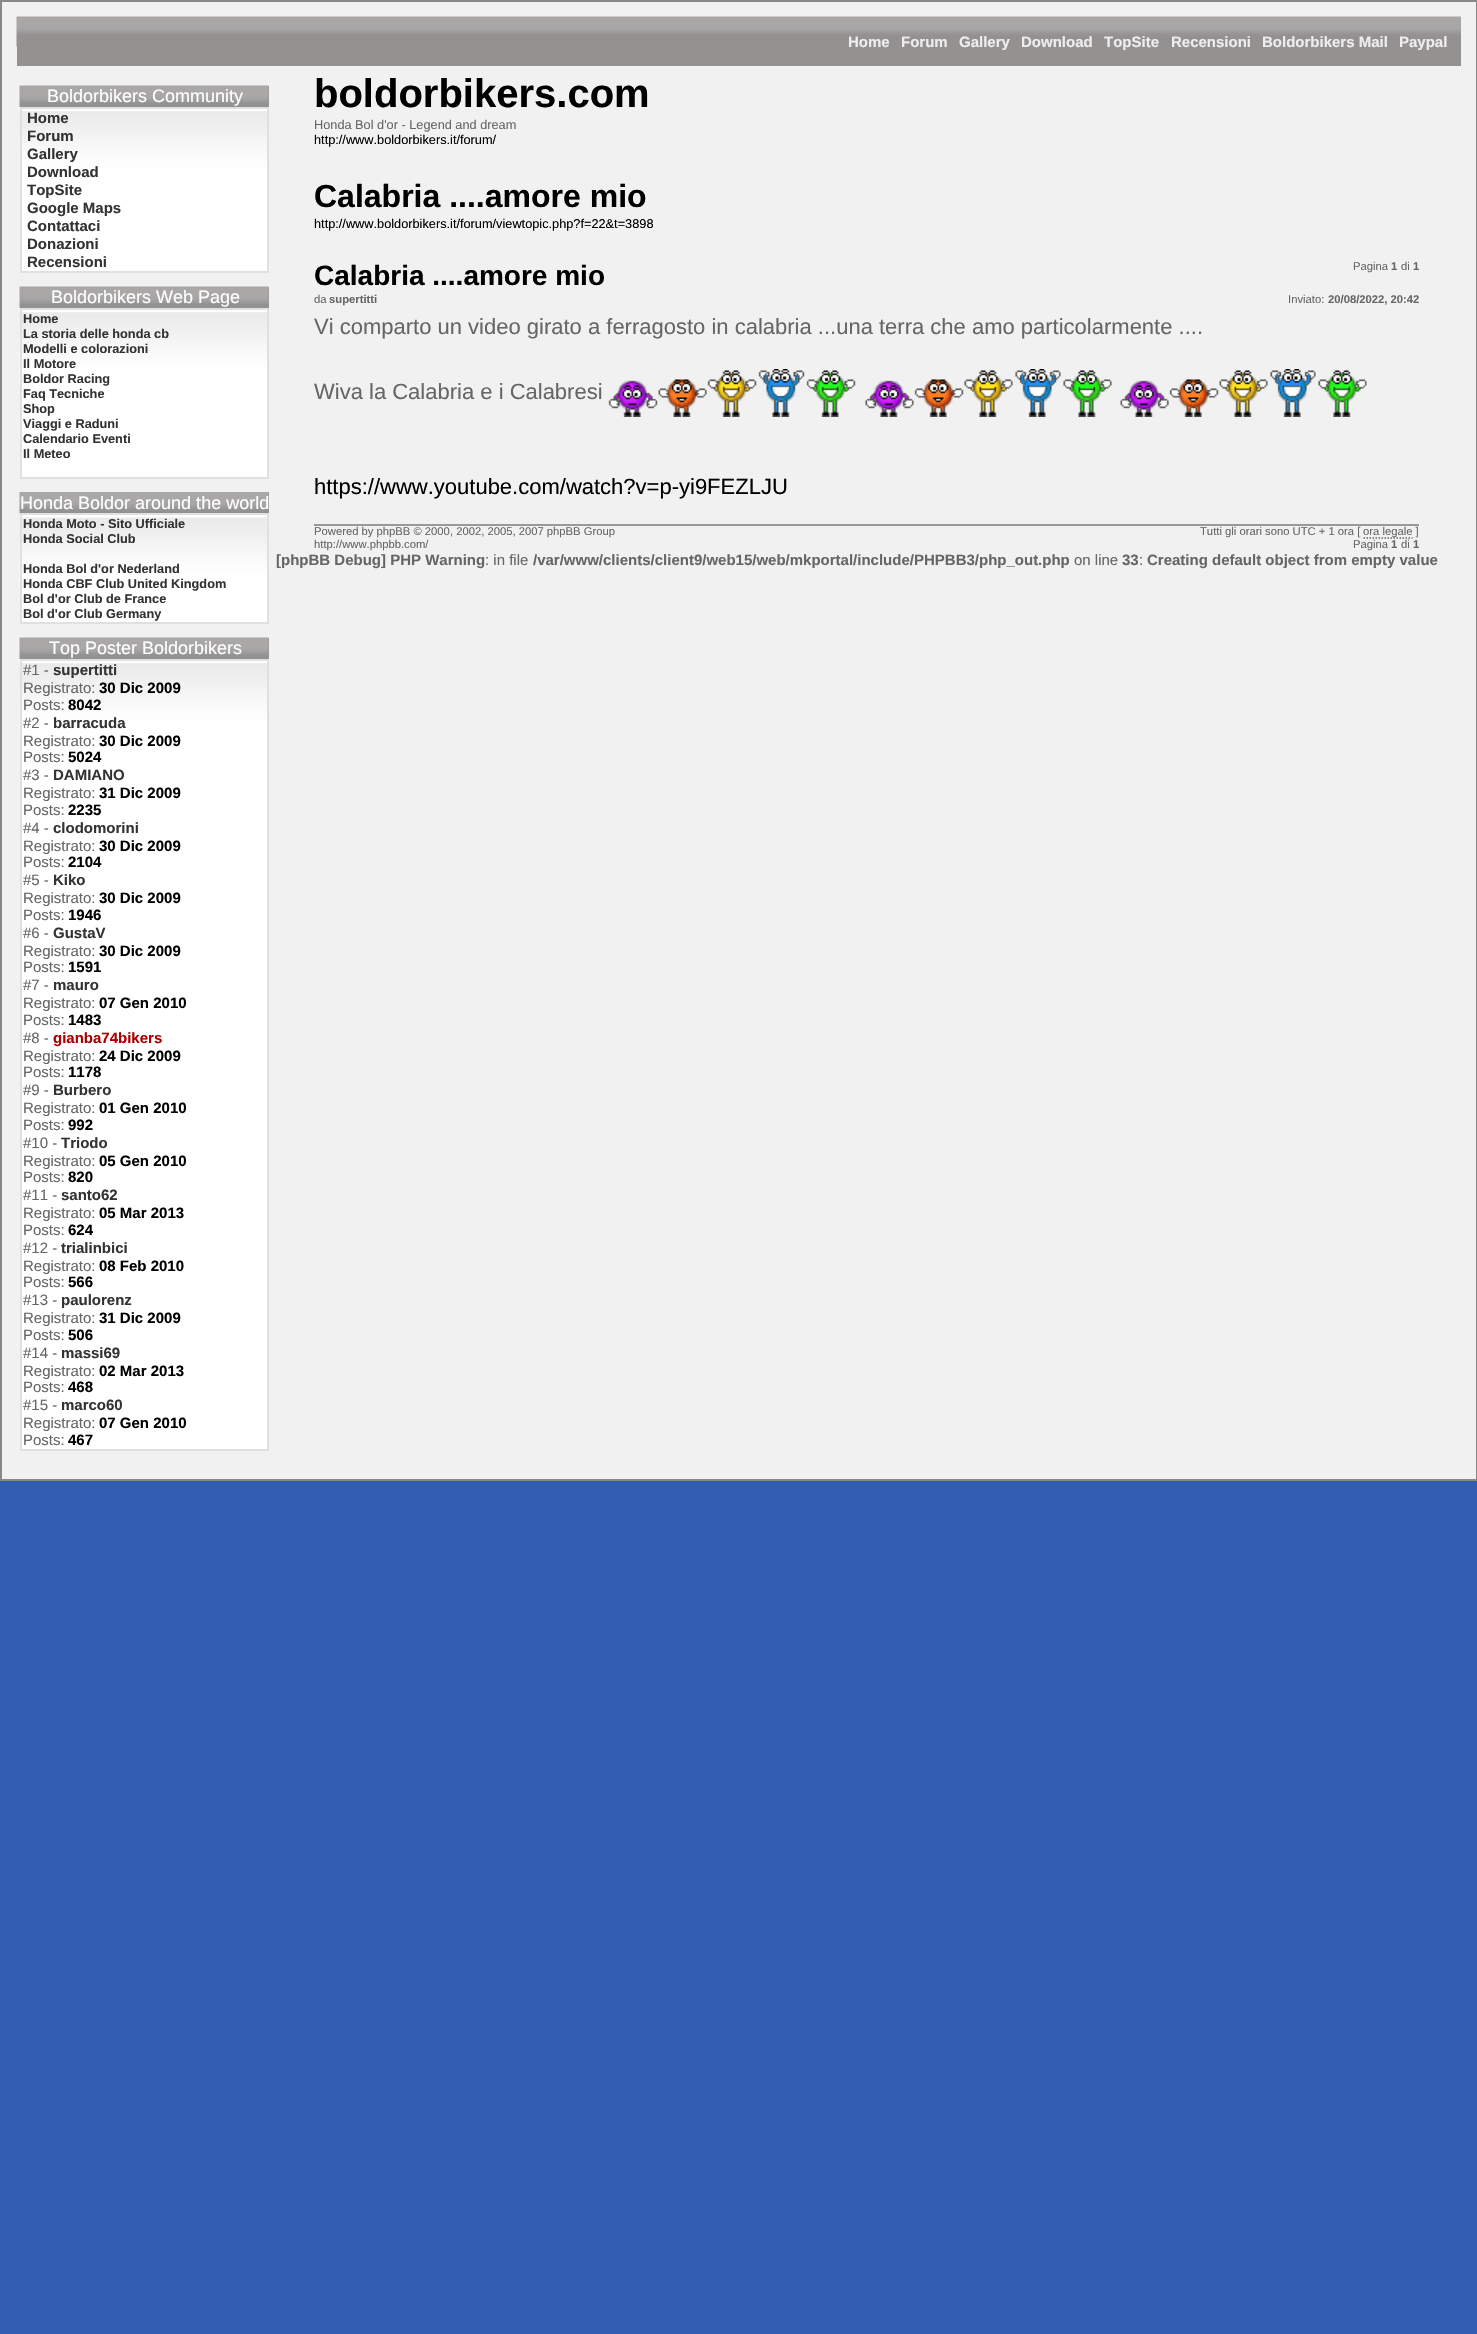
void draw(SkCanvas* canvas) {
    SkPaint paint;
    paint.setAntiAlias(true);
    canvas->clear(0xFF305DB0);
    paint.setColor(0xFFF1F1F1);
    canvas->drawRect(SkRect::MakeXYWH(1, 1, 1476, 1479), paint);
    paint.setStyle(SkPaint::kStroke_Style);
    paint.setStrokeWidth(2);
    paint.setColor(0xFF888888);
    canvas->drawRect(SkRect::MakeXYWH(1, 1, 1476, 1479), paint);
    paint.setStyle(SkPaint::kFill_Style);
    paint.setColor(0xFF949191);
    canvas->drawRect(SkRect::MakeXYWH(17, 46, 1444, 20), paint);
    canvas->drawImageRect(SkImages::DeferredFromEncodedData(SkData::MakeFromFileName("img1.png")), SkRect::MakeXYWH(16, 16, 1445, 31), SkSamplingOptions());
    SkFont font1(fontMgr->matchFamilyStyle("Liberation Sans", SkFontStyle::Bold()), 15);
    font1.setSubpixel(true);
    paint.setColor(0xFFEEEEEE);
    canvas->drawString("Home", 848, 47, font1, paint);
    canvas->drawString("Forum", 901, 47, font1, paint);
    canvas->drawString("Gallery", 959, 47, font1, paint);
    canvas->drawString("Download", 1021, 47, font1, paint);
    canvas->drawString("TopSite", 1104, 47, font1, paint);
    canvas->drawString("Recensioni", 1171, 47, font1, paint);
    canvas->drawString("Boldorbikers Mail", 1262, 47, font1, paint);
    canvas->drawString("Paypal", 1399, 47, font1, paint);
    paint.setColor(0xFF949191);
    canvas->drawRect(SkRect::MakeXYWH(20, 86, 249, 21), paint);
    canvas->drawImageRect(SkImages::DeferredFromEncodedData(SkData::MakeFromFileName("img2.png")), SkRect::MakeXYWH(19, 85, 4, 22), SkSamplingOptions());
    canvas->drawImageRect(SkImages::DeferredFromEncodedData(SkData::MakeFromFileName("img3.png")), SkRect::MakeXYWH(22, 85, 247, 18), SkSamplingOptions());
    SkFont font2(fontMgr->matchFamilyStyle("Liberation Sans", SkFontStyle::Normal()), 18);
    font2.setSubpixel(true);
    paint.setColor(0xFFFFFFFF);
    canvas->drawString("Boldorbikers Community", 47, 102, font2, paint);
    canvas->drawRect(SkRect::MakeXYWH(22, 183, 245, 88), paint);
    canvas->drawImageRect(SkImages::DeferredFromEncodedData(SkData::MakeFromFileName("img4.png")), SkRect::MakeXYWH(19, 108, 248, 75), SkSamplingOptions());
    paint.setStyle(SkPaint::kStroke_Style);
    paint.setColor(0xFFE0E0E0);
    canvas->drawRect(SkRect::MakeXYWH(21, 108, 247, 164), paint);
    paint.setStyle(SkPaint::kFill_Style);
    paint.setColor(0xFF333333);
    canvas->drawString("Home", 27, 123, font1, paint);
    canvas->drawString("Forum", 27, 141, font1, paint);
    canvas->drawString("Gallery", 27, 159, font1, paint);
    canvas->drawString("Download", 27, 177, font1, paint);
    canvas->drawString("TopSite", 27, 195, font1, paint);
    canvas->drawString("Google Maps", 27, 213, font1, paint);
    canvas->drawString("Contattaci", 27, 231, font1, paint);
    canvas->drawString("Donazioni", 27, 249, font1, paint);
    canvas->drawString("Recensioni", 27, 267, font1, paint);
    paint.setColor(0xFF949191);
    canvas->drawRect(SkRect::MakeXYWH(20, 287, 249, 21), paint);
    canvas->drawImageRect(SkImages::DeferredFromEncodedData(SkData::MakeFromFileName("img2.png")), SkRect::MakeXYWH(19, 286, 4, 22), SkSamplingOptions());
    canvas->drawImageRect(SkImages::DeferredFromEncodedData(SkData::MakeFromFileName("img3.png")), SkRect::MakeXYWH(22, 286, 247, 18), SkSamplingOptions());
    paint.setColor(0xFFFFFFFF);
    canvas->drawString("Boldorbikers Web Page", 51, 303, font2, paint);
    canvas->drawRect(SkRect::MakeXYWH(22, 384, 245, 93), paint);
    canvas->drawImageRect(SkImages::DeferredFromEncodedData(SkData::MakeFromFileName("img5.png")), SkRect::MakeXYWH(19, 309, 248, 75), SkSamplingOptions());
    paint.setStyle(SkPaint::kStroke_Style);
    paint.setColor(0xFFE0E0E0);
    canvas->drawRect(SkRect::MakeXYWH(21, 309, 247, 169), paint);
    SkFont font3(fontMgr->matchFamilyStyle("Liberation Sans", SkFontStyle::Bold()), 12.75f);
    font3.setSubpixel(true);
    paint.setStyle(SkPaint::kFill_Style);
    paint.setColor(0xFF333333);
    canvas->drawString("Home", 23, 323, font3, paint);
    canvas->drawString("La storia delle honda cb", 23, 338, font3, paint);
    canvas->drawString("Modelli e colorazioni", 23, 353, font3, paint);
    canvas->drawString("Il Motore", 23, 368, font3, paint);
    canvas->drawString("Boldor Racing", 23, 383, font3, paint);
    canvas->drawString("Faq Tecniche", 23, 398, font3, paint);
    canvas->drawString("Shop", 23, 413, font3, paint);
    canvas->drawString("Viaggi e Raduni", 23, 428, font3, paint);
    canvas->drawString("Calendario Eventi", 23, 443, font3, paint);
    canvas->drawString("Il Meteo", 23, 458, font3, paint);
    paint.setColor(0xFF949191);
    canvas->drawRect(SkRect::MakeXYWH(268, 492, 1, 21), paint);
    canvas->drawImageRect(SkImages::DeferredFromEncodedData(SkData::MakeFromFileName("img6.png")), SkRect::MakeXYWH(19, 492, 250, 21), SkSamplingOptions());
    paint.setColor(0xFFFFFFFF);
    canvas->drawString("Honda Boldor around the world", 20, 509, font2, paint);
    canvas->drawRect(SkRect::MakeXYWH(22, 589, 245, 33), paint);
    canvas->drawImageRect(SkImages::DeferredFromEncodedData(SkData::MakeFromFileName("img7.png")), SkRect::MakeXYWH(19, 515, 248, 74), SkSamplingOptions());
    paint.setStyle(SkPaint::kStroke_Style);
    paint.setColor(0xFFE0E0E0);
    canvas->drawRect(SkRect::MakeXYWH(21, 514, 247, 109), paint);
    paint.setStyle(SkPaint::kFill_Style);
    paint.setColor(0xFF333333);
    canvas->drawString("Honda Moto - Sito Ufficiale", 23, 528, font3, paint);
    canvas->drawString("Honda Social Club", 23, 543, font3, paint);
    canvas->drawString("Honda Bol d'or Nederland", 23, 573, font3, paint);
    canvas->drawString("Honda CBF Club United Kingdom", 23, 588, font3, paint);
    canvas->drawString("Bol d'or Club de France", 23, 603, font3, paint);
    canvas->drawString("Bol d'or Club Germany", 23, 618, font3, paint);
    paint.setColor(0xFF949191);
    canvas->drawRect(SkRect::MakeXYWH(20, 638, 249, 21), paint);
    canvas->drawImageRect(SkImages::DeferredFromEncodedData(SkData::MakeFromFileName("img2.png")), SkRect::MakeXYWH(19, 637, 4, 22), SkSamplingOptions());
    canvas->drawImageRect(SkImages::DeferredFromEncodedData(SkData::MakeFromFileName("img3.png")), SkRect::MakeXYWH(22, 637, 247, 18), SkSamplingOptions());
    paint.setColor(0xFFFFFFFF);
    canvas->drawString("Top Poster Boldorbikers", 49, 654, font2, paint);
    canvas->drawRect(SkRect::MakeXYWH(22, 735, 245, 714), paint);
    canvas->drawImageRect(SkImages::DeferredFromEncodedData(SkData::MakeFromFileName("img8.png")), SkRect::MakeXYWH(19, 660, 248, 75), SkSamplingOptions());
    paint.setStyle(SkPaint::kStroke_Style);
    paint.setColor(0xFFE0E0E0);
    canvas->drawRect(SkRect::MakeXYWH(21, 660, 247, 790), paint);
    SkFont font4(fontMgr->matchFamilyStyle("Liberation Sans", SkFontStyle::Normal()), 15);
    font4.setSubpixel(true);
    paint.setStyle(SkPaint::kFill_Style);
    paint.setColor(0xFF666666);
    canvas->drawString("#1 -", 23, 675, font4, paint);
    paint.setColor(0xFF333333);
    canvas->drawString("supertitti", 53, 675, font1, paint);
    paint.setColor(0xFF666666);
    canvas->drawString("Registrato:", 23, 693, font4, paint);
    paint.setColor(0xFF000000);
    canvas->drawString("30 Dic 2009", 99, 693, font1, paint);
    paint.setColor(0xFF666666);
    canvas->drawString("Posts:", 23, 710, font4, paint);
    paint.setColor(0xFF000000);
    canvas->drawString("8042", 68, 710, font1, paint);
    paint.setColor(0xFF666666);
    canvas->drawString("#2 -", 23, 728, font4, paint);
    paint.setColor(0xFF333333);
    canvas->drawString("barracuda", 53, 728, font1, paint);
    paint.setColor(0xFF666666);
    canvas->drawString("Registrato:", 23, 746, font4, paint);
    paint.setColor(0xFF000000);
    canvas->drawString("30 Dic 2009", 99, 746, font1, paint);
    paint.setColor(0xFF666666);
    canvas->drawString("Posts:", 23, 762, font4, paint);
    paint.setColor(0xFF000000);
    canvas->drawString("5024", 68, 762, font1, paint);
    paint.setColor(0xFF666666);
    canvas->drawString("#3 -", 23, 780, font4, paint);
    paint.setColor(0xFF333333);
    canvas->drawString("DAMIANO", 53, 780, font1, paint);
    paint.setColor(0xFF666666);
    canvas->drawString("Registrato:", 23, 798, font4, paint);
    paint.setColor(0xFF000000);
    canvas->drawString("31 Dic 2009", 99, 798, font1, paint);
    paint.setColor(0xFF666666);
    canvas->drawString("Posts:", 23, 815, font4, paint);
    paint.setColor(0xFF000000);
    canvas->drawString("2235", 68, 815, font1, paint);
    paint.setColor(0xFF666666);
    canvas->drawString("#4 -", 23, 833, font4, paint);
    paint.setColor(0xFF333333);
    canvas->drawString("clodomorini", 53, 833, font1, paint);
    paint.setColor(0xFF666666);
    canvas->drawString("Registrato:", 23, 851, font4, paint);
    paint.setColor(0xFF000000);
    canvas->drawString("30 Dic 2009", 99, 851, font1, paint);
    paint.setColor(0xFF666666);
    canvas->drawString("Posts:", 23, 867, font4, paint);
    paint.setColor(0xFF000000);
    canvas->drawString("2104", 68, 867, font1, paint);
    paint.setColor(0xFF666666);
    canvas->drawString("#5 -", 23, 885, font4, paint);
    paint.setColor(0xFF333333);
    canvas->drawString("Kiko", 53, 885, font1, paint);
    paint.setColor(0xFF666666);
    canvas->drawString("Registrato:", 23, 903, font4, paint);
    paint.setColor(0xFF000000);
    canvas->drawString("30 Dic 2009", 99, 903, font1, paint);
    paint.setColor(0xFF666666);
    canvas->drawString("Posts:", 23, 920, font4, paint);
    paint.setColor(0xFF000000);
    canvas->drawString("1946", 68, 920, font1, paint);
    paint.setColor(0xFF666666);
    canvas->drawString("#6 -", 23, 938, font4, paint);
    paint.setColor(0xFF333333);
    canvas->drawString("GustaV", 53, 938, font1, paint);
    paint.setColor(0xFF666666);
    canvas->drawString("Registrato:", 23, 956, font4, paint);
    paint.setColor(0xFF000000);
    canvas->drawString("30 Dic 2009", 99, 956, font1, paint);
    paint.setColor(0xFF666666);
    canvas->drawString("Posts:", 23, 972, font4, paint);
    paint.setColor(0xFF000000);
    canvas->drawString("1591", 68, 972, font1, paint);
    paint.setColor(0xFF666666);
    canvas->drawString("#7 -", 23, 990, font4, paint);
    paint.setColor(0xFF333333);
    canvas->drawString("mauro", 53, 990, font1, paint);
    paint.setColor(0xFF666666);
    canvas->drawString("Registrato:", 23, 1008, font4, paint);
    paint.setColor(0xFF000000);
    canvas->drawString("07 Gen 2010", 99, 1008, font1, paint);
    paint.setColor(0xFF666666);
    canvas->drawString("Posts:", 23, 1025, font4, paint);
    paint.setColor(0xFF000000);
    canvas->drawString("1483", 68, 1025, font1, paint);
    paint.setColor(0xFF666666);
    canvas->drawString("#8 -", 23, 1043, font4, paint);
    paint.setColor(0xFFAA0000);
    canvas->drawString("gianba74bikers", 53, 1043, font1, paint);
    paint.setColor(0xFF666666);
    canvas->drawString("Registrato:", 23, 1061, font4, paint);
    paint.setColor(0xFF000000);
    canvas->drawString("24 Dic 2009", 99, 1061, font1, paint);
    paint.setColor(0xFF666666);
    canvas->drawString("Posts:", 23, 1077, font4, paint);
    paint.setColor(0xFF000000);
    canvas->drawString("1178", 68, 1077, font1, paint);
    paint.setColor(0xFF666666);
    canvas->drawString("#9 -", 23, 1095, font4, paint);
    paint.setColor(0xFF333333);
    canvas->drawString("Burbero", 53, 1095, font1, paint);
    paint.setColor(0xFF666666);
    canvas->drawString("Registrato:", 23, 1113, font4, paint);
    paint.setColor(0xFF000000);
    canvas->drawString("01 Gen 2010", 99, 1113, font1, paint);
    paint.setColor(0xFF666666);
    canvas->drawString("Posts:", 23, 1130, font4, paint);
    paint.setColor(0xFF000000);
    canvas->drawString("992", 68, 1130, font1, paint);
    paint.setColor(0xFF666666);
    canvas->drawString("#10 -", 23, 1148, font4, paint);
    paint.setColor(0xFF333333);
    canvas->drawString("Triodo", 61, 1148, font1, paint);
    paint.setColor(0xFF666666);
    canvas->drawString("Registrato:", 23, 1166, font4, paint);
    paint.setColor(0xFF000000);
    canvas->drawString("05 Gen 2010", 99, 1166, font1, paint);
    paint.setColor(0xFF666666);
    canvas->drawString("Posts:", 23, 1182, font4, paint);
    paint.setColor(0xFF000000);
    canvas->drawString("820", 68, 1182, font1, paint);
    paint.setColor(0xFF666666);
    canvas->drawString("#11 -", 23, 1200, font4, paint);
    paint.setColor(0xFF333333);
    canvas->drawString("santo62", 61, 1200, font1, paint);
    paint.setColor(0xFF666666);
    canvas->drawString("Registrato:", 23, 1218, font4, paint);
    paint.setColor(0xFF000000);
    canvas->drawString("05 Mar 2013", 99, 1218, font1, paint);
    paint.setColor(0xFF666666);
    canvas->drawString("Posts:", 23, 1235, font4, paint);
    paint.setColor(0xFF000000);
    canvas->drawString("624", 68, 1235, font1, paint);
    paint.setColor(0xFF666666);
    canvas->drawString("#12 -", 23, 1253, font4, paint);
    paint.setColor(0xFF333333);
    canvas->drawString("trialinbici", 61, 1253, font1, paint);
    paint.setColor(0xFF666666);
    canvas->drawString("Registrato:", 23, 1271, font4, paint);
    paint.setColor(0xFF000000);
    canvas->drawString("08 Feb 2010", 99, 1271, font1, paint);
    paint.setColor(0xFF666666);
    canvas->drawString("Posts:", 23, 1287, font4, paint);
    paint.setColor(0xFF000000);
    canvas->drawString("566", 68, 1287, font1, paint);
    paint.setColor(0xFF666666);
    canvas->drawString("#13 -", 23, 1305, font4, paint);
    paint.setColor(0xFF333333);
    canvas->drawString("paulorenz", 61, 1305, font1, paint);
    paint.setColor(0xFF666666);
    canvas->drawString("Registrato:", 23, 1323, font4, paint);
    paint.setColor(0xFF000000);
    canvas->drawString("31 Dic 2009", 99, 1323, font1, paint);
    paint.setColor(0xFF666666);
    canvas->drawString("Posts:", 23, 1340, font4, paint);
    paint.setColor(0xFF000000);
    canvas->drawString("506", 68, 1340, font1, paint);
    paint.setColor(0xFF666666);
    canvas->drawString("#14 -", 23, 1358, font4, paint);
    paint.setColor(0xFF333333);
    canvas->drawString("massi69", 61, 1358, font1, paint);
    paint.setColor(0xFF666666);
    canvas->drawString("Registrato:", 23, 1376, font4, paint);
    paint.setColor(0xFF000000);
    canvas->drawString("02 Mar 2013", 99, 1376, font1, paint);
    paint.setColor(0xFF666666);
    canvas->drawString("Posts:", 23, 1392, font4, paint);
    paint.setColor(0xFF000000);
    canvas->drawString("468", 68, 1392, font1, paint);
    paint.setColor(0xFF666666);
    canvas->drawString("#15 -", 23, 1410, font4, paint);
    paint.setColor(0xFF333333);
    canvas->drawString("marco60", 61, 1410, font1, paint);
    paint.setColor(0xFF666666);
    canvas->drawString("Registrato:", 23, 1428, font4, paint);
    paint.setColor(0xFF000000);
    canvas->drawString("07 Gen 2010", 99, 1428, font1, paint);
    paint.setColor(0xFF666666);
    canvas->drawString("Posts:", 23, 1445, font4, paint);
    paint.setColor(0xFF000000);
    canvas->drawString("467", 68, 1445, font1, paint);
    SkFont font5(fontMgr->matchFamilyStyle("Liberation Sans", SkFontStyle::Bold()), 40);
    font5.setSubpixel(true);
    canvas->drawString("boldorbikers.com", 314, 107, font5, paint);
    SkFont font6(fontMgr->matchFamilyStyle("Liberation Sans", SkFontStyle::Normal()), 12.75f);
    font6.setSubpixel(true);
    paint.setColor(0xFF666666);
    canvas->drawString("Honda Bol d'or - Legend and dream", 314, 129, font6, paint);
    paint.setColor(0xFF000000);
    canvas->drawString("http://www.boldorbikers.it/forum/", 314, 144, font6, paint);
    SkFont font7(fontMgr->matchFamilyStyle("Liberation Sans", SkFontStyle::Bold()), 32);
    font7.setSubpixel(true);
    canvas->drawString("Calabria ....amore mio", 314, 207, font7, paint);
    canvas->drawString("http://www.boldorbikers.it/forum/viewtopic.php?f=22&t=3898", 314, 228, font6, paint);
    SkFont font8(fontMgr->matchFamilyStyle("Liberation Sans", SkFontStyle::Normal()), 11.25f);
    font8.setSubpixel(true);
    paint.setColor(0xFF666666);
    canvas->drawString("Pagina", 1353, 270, font8, paint);
    SkFont font9(fontMgr->matchFamilyStyle("Liberation Sans", SkFontStyle::Bold()), 11.25f);
    font9.setSubpixel(true);
    canvas->drawString("1", 1391, 270, font9, paint);
    canvas->drawString("di", 1401, 270, font8, paint);
    canvas->drawString("1", 1413, 270, font9, paint);
    SkFont font10(fontMgr->matchFamilyStyle("Liberation Sans", SkFontStyle::Bold()), 28);
    font10.setSubpixel(true);
    paint.setColor(0xFF000000);
    canvas->drawString("Calabria ....amore mio", 314, 285, font10, paint);
    paint.setColor(0xFF666666);
    canvas->drawString("da", 314, 303, font8, paint);
    canvas->drawString("supertitti", 329, 303, font9, paint);
    canvas->drawString("Inviato:", 1288, 303, font8, paint);
    canvas->drawString("20/08/2022, 20:42", 1328, 303, font9, paint);
    SkFont font11(fontMgr->matchFamilyStyle("Liberation Sans", SkFontStyle::Normal()), 22);
    font11.setSubpixel(true);
    canvas->drawString("Vi comparto un video girato a ferragosto in calabria ...una terra che amo particolarmente ....", 314, 334, font11, paint);
    canvas->drawString("Wiva la Calabria e i Calabresi", 314, 399, font11, paint);
    canvas->drawImageRect(SkImages::DeferredFromEncodedData(SkData::MakeFromFileName("img9.png")), SkRect::MakeXYWH(608, 369, 248, 48), SkSamplingOptions());
    canvas->drawImageRect(SkImages::DeferredFromEncodedData(SkData::MakeFromFileName("img10.png")), SkRect::MakeXYWH(865, 369, 247, 48), SkSamplingOptions());
    canvas->drawImageRect(SkImages::DeferredFromEncodedData(SkData::MakeFromFileName("img11.png")), SkRect::MakeXYWH(1120, 369, 247, 48), SkSamplingOptions());
    paint.setColor(0xFF000000);
    canvas->drawString("https://www.youtube.com/watch?v=p-yi9FEZLJU", 314, 494, font11, paint);
    paint.setColor(0xFF999999);
    canvas->drawRect(SkRect::MakeXYWH(314, 524, 1105, 2), paint);
    paint.setColor(0xFF666666);
    canvas->drawString("Powered by phpBB © 2000, 2002, 2005, 2007 phpBB Group", 314, 535, font8, paint);
    canvas->drawString("http://www.phpbb.com/", 314, 548, font8, paint);
    canvas->drawString("Tutti gli orari sono UTC + 1 ora [", 1200, 535, font8, paint);
    paint.setStyle(SkPaint::kStroke_Style);
    paint.setStrokeWidth(1.5f);
    paint.setPathEffect(SkDashPathEffect::Make({{1.5f, 1.5f}}, 0));
    canvas->drawPath(SkPathBuilder().moveTo(1363.5f, 538).lineTo(1412.5f, 538).detach(), paint);
    paint.setPathEffect(nullptr);
    paint.setStyle(SkPaint::kFill_Style);
    canvas->drawString("ora legale ]", 1363, 535, font8, paint);
    canvas->drawString("Pagina", 1353, 548, font8, paint);
    canvas->drawString("1", 1391, 548, font9, paint);
    canvas->drawString("di", 1401, 548, font8, paint);
    canvas->drawString("1", 1413, 548, font9, paint);
    canvas->drawString("[phpBB Debug] PHP Warning", 276, 565, font1, paint);
    canvas->drawString(": in file", 485, 565, font4, paint);
    canvas->drawString("/var/www/clients/client9/web15/web/mkportal/include/PHPBB3/php_out.php", 533, 565, font1, paint);
    canvas->drawString("on line", 1074, 565, font4, paint);
    canvas->drawString("33", 1122, 565, font1, paint);
    canvas->drawString(":", 1139, 565, font4, paint);
    canvas->drawString("Creating default object from empty value", 1147, 565, font1, paint);
}
